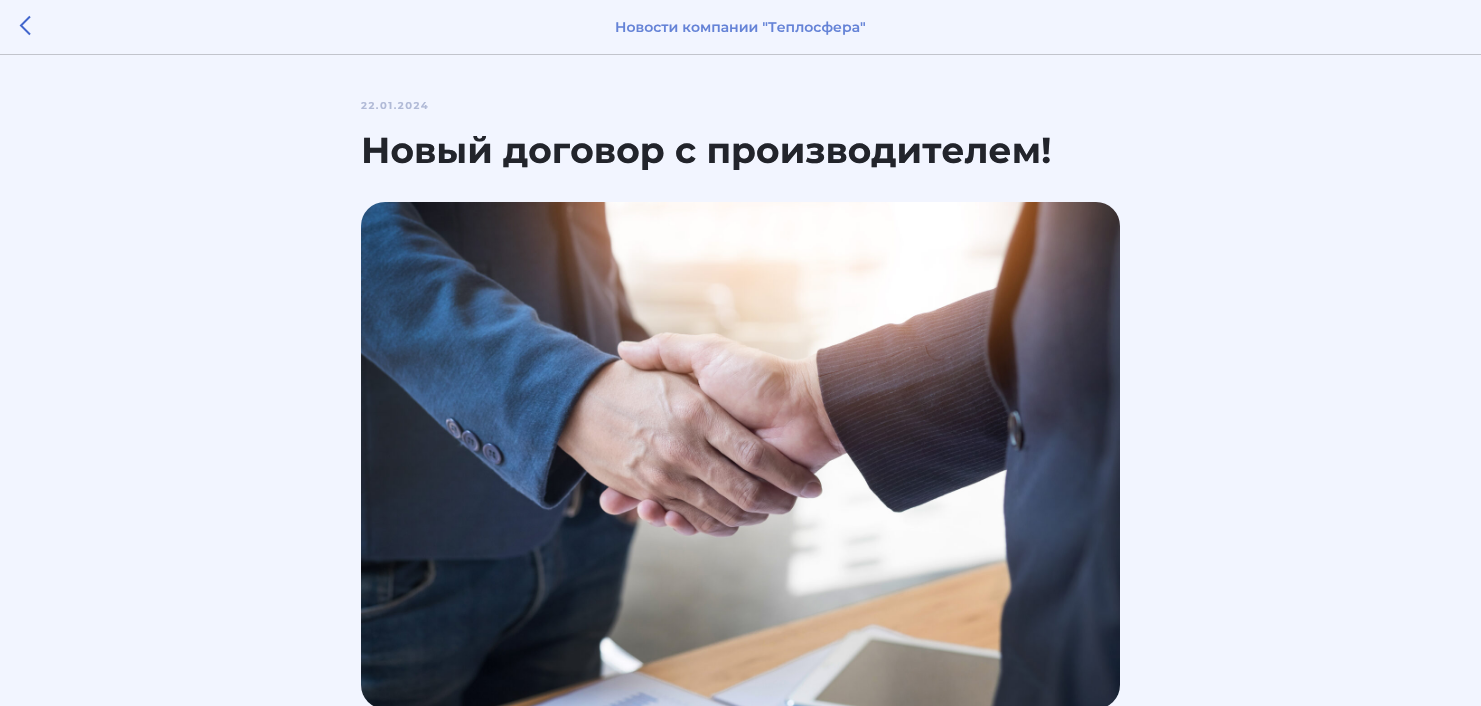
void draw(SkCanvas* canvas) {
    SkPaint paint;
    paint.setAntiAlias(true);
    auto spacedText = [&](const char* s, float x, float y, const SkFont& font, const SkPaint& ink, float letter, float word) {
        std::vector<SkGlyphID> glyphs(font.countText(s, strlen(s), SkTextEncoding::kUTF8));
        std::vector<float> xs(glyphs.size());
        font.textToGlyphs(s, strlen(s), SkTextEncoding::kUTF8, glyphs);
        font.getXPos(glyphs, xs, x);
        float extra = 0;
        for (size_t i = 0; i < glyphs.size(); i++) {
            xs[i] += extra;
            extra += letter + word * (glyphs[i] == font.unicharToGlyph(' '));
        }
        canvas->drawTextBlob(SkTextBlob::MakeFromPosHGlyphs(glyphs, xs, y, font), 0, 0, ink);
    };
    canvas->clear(0xFFF2F5FF);
    paint.setColor(0xFFC2C4CC);
    canvas->drawRect(SkRect::MakeXYWH(0, 54, 1481, 1), paint);
    paint.setStyle(SkPaint::kStroke_Style);
    paint.setStrokeWidth(2);
    paint.setColor(0xFF4266CD);
    canvas->drawPath(SkPathBuilder().moveTo(30, 34.5f).lineTo(21, 25.5f).lineTo(30, 16.5f).detach(), paint);
    SkFont font1(fontMgr->matchFamilyStyle("Montserrat", SkFontStyle(600, SkFontStyle::kNormal_Width, SkFontStyle::kUpright_Slant)), 14);
    font1.setSubpixel(true);
    paint.setStyle(SkPaint::kFill_Style);
    paint.setColor(0xFF6583D7);
    canvas->drawString("Новости компании \"Теплосфера\"", 615, 32, font1, paint);
    SkFont font2(fontMgr->matchFamilyStyle("Montserrat", SkFontStyle::Bold()), 10);
    font2.setSubpixel(true);
    paint.setColor(0xFFB1BAD7);
    spacedText("22.01.2024", 361, 109, font2, paint, 1.5f, 0);
    SkFont font3(fontMgr->matchFamilyStyle("Montserrat", SkFontStyle::Bold()), 36);
    font3.setSubpixel(true);
    paint.setColor(0xFF22242B);
    canvas->drawString("Новый договор с производителем!", 361, 163, font3, paint);
    canvas->drawImageRect(SkImages::DeferredFromEncodedData(SkData::MakeFromFileName("img1.png")), SkRect::MakeXYWH(361, 202, 759, 504), SkSamplingOptions());
}
